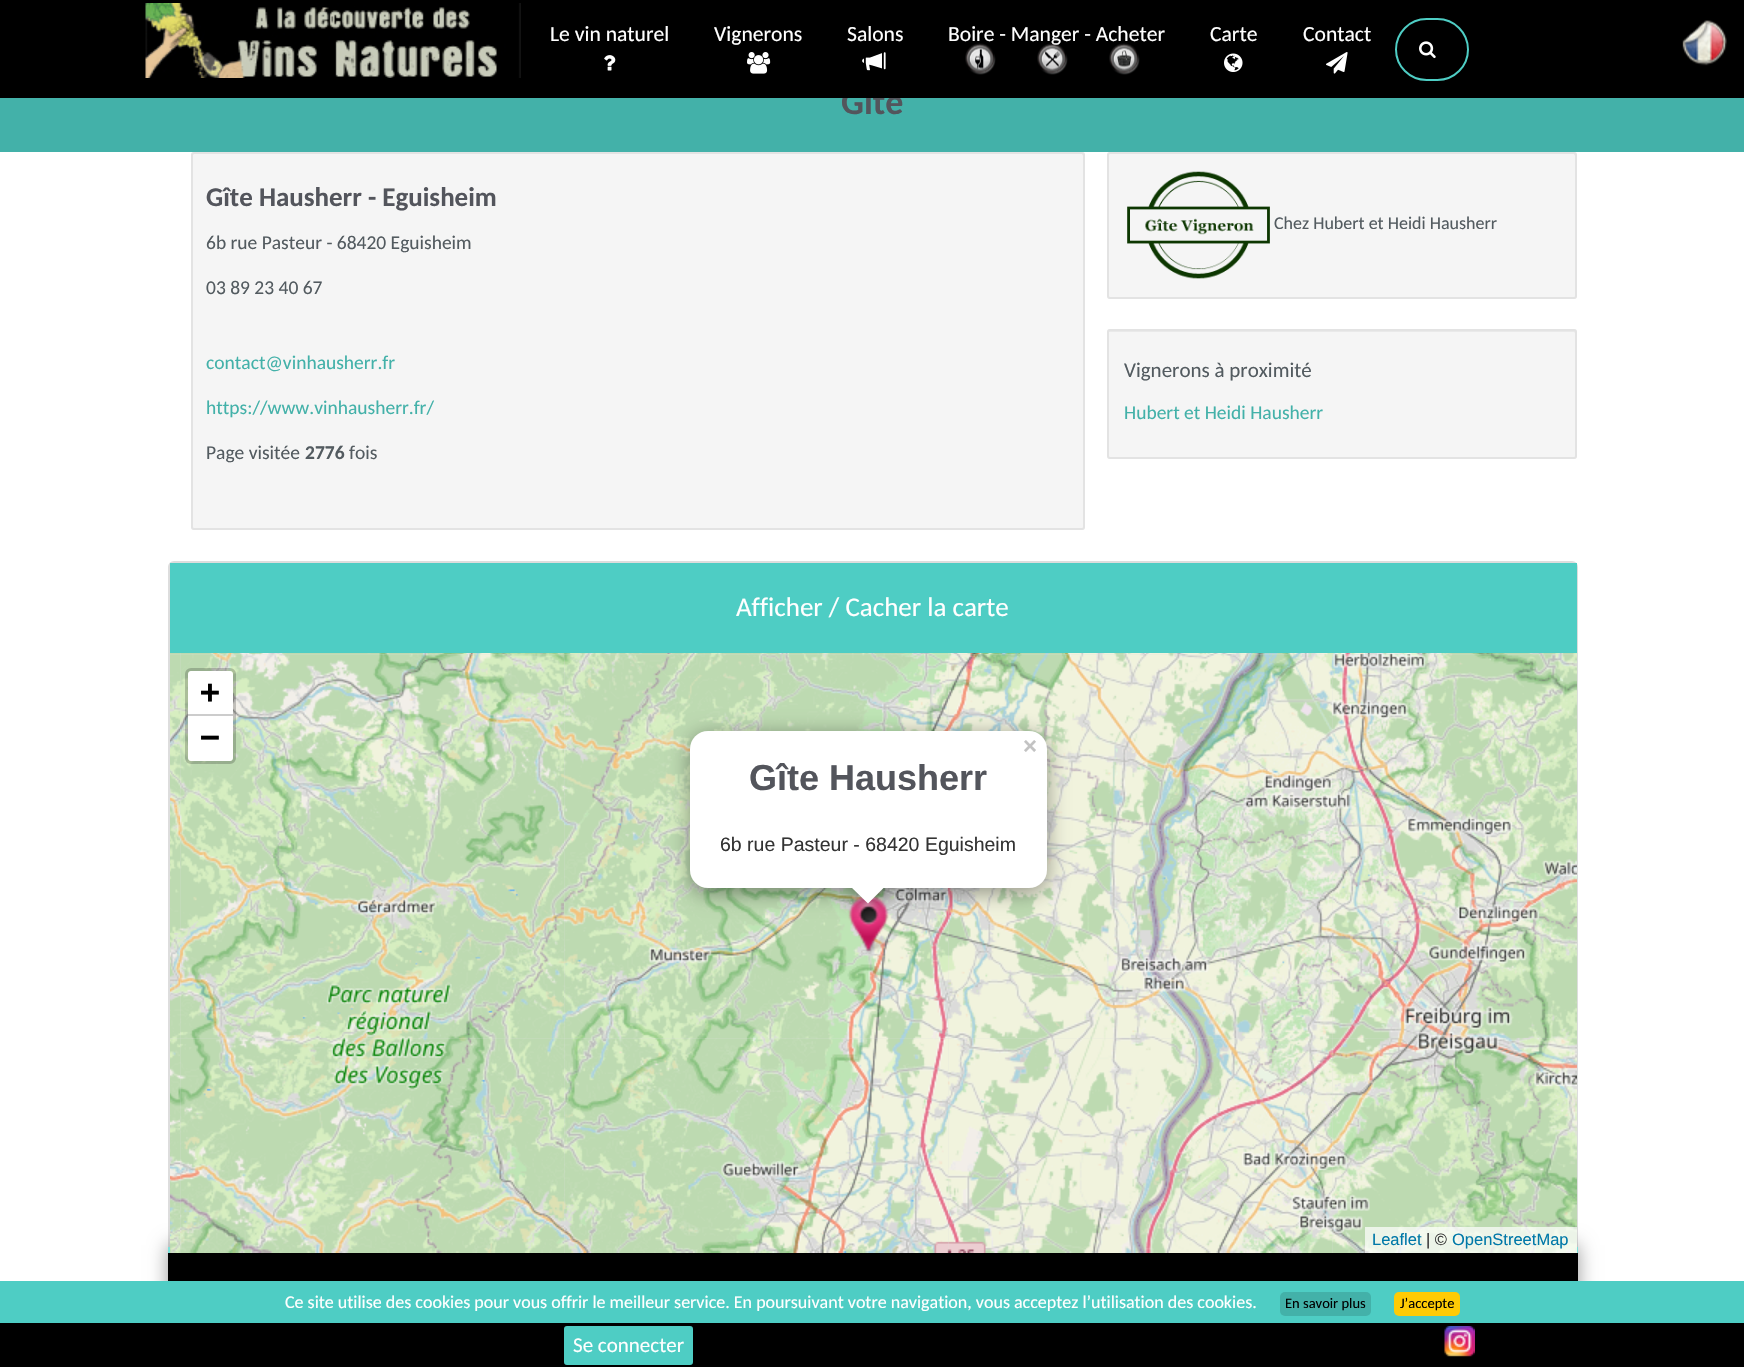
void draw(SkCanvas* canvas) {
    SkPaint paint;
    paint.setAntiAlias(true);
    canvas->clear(0xFF43B1A9);
    SkFont font1(fontMgr->matchFamilyStyle("Carlito", SkFontStyle::Bold()), 36);
    font1.setSubpixel(true);
    paint.setColor(0xFF53555C);
    canvas->drawString("Gîte", 841, 114, font1, paint);
    paint.setColor(0xFF000000);
    canvas->drawRect(SkRect::MakeXYWH(0, 0, 1744, 98), paint);
    canvas->drawImageRect(SkImages::DeferredFromEncodedData(SkData::MakeFromFileName("img1.png")), SkRect::MakeXYWH(145, 3, 376, 75), SkSamplingOptions());
    SkFont font2(fontMgr->matchFamilyStyle("Carlito", SkFontStyle::Normal()), 21.6f);
    font2.setSubpixel(true);
    paint.setColor(0xFFFFFFFF);
    canvas->drawString("Le vin naturel", 550, 41, font2, paint);
    canvas->drawImageRect(SkImages::DeferredFromEncodedData(SkData::MakeFromFileName("img2.png")), SkRect::MakeXYWH(604, 55, 12, 16), SkSamplingOptions());
    canvas->drawString("Vignerons", 714, 41, font2, paint);
    canvas->drawImageRect(SkImages::DeferredFromEncodedData(SkData::MakeFromFileName("img3.png")), SkRect::MakeXYWH(747, 52, 24, 22), SkSamplingOptions());
    canvas->drawString("Salons", 847, 41, font2, paint);
    canvas->drawImageRect(SkImages::DeferredFromEncodedData(SkData::MakeFromFileName("img4.png")), SkRect::MakeXYWH(862, 52, 24, 19), SkSamplingOptions());
    canvas->drawString("Boire - Manger - Acheter", 948, 41, font2, paint);
    canvas->drawImageRect(SkImages::DeferredFromEncodedData(SkData::MakeFromFileName("img5.png")), SkRect::MakeXYWH(965, 43, 31, 32), SkSamplingOptions());
    canvas->drawImageRect(SkImages::DeferredFromEncodedData(SkData::MakeFromFileName("img6.png")), SkRect::MakeXYWH(1037, 43, 31, 32), SkSamplingOptions());
    canvas->drawImageRect(SkImages::DeferredFromEncodedData(SkData::MakeFromFileName("img7.png")), SkRect::MakeXYWH(1109, 43, 31, 32), SkSamplingOptions());
    canvas->drawString("Carte", 1210, 41, font2, paint);
    canvas->drawImageRect(SkImages::DeferredFromEncodedData(SkData::MakeFromFileName("img8.png")), SkRect::MakeXYWH(1224, 53, 19, 19), SkSamplingOptions());
    canvas->drawString("Contact", 1303, 41, font2, paint);
    canvas->drawImageRect(SkImages::DeferredFromEncodedData(SkData::MakeFromFileName("img9.png")), SkRect::MakeXYWH(1326, 52, 22, 22), SkSamplingOptions());
    paint.setStyle(SkPaint::kStroke_Style);
    paint.setStrokeWidth(2);
    paint.setColor(0xFF4ECDC4);
    canvas->drawRoundRect(SkRect::MakeXYWH(1396, 19, 72, 61), 30.5f, 30.5f, paint);
    canvas->drawImageRect(SkImages::DeferredFromEncodedData(SkData::MakeFromFileName("img10.png")), SkRect::MakeXYWH(1419, 41, 17, 18), SkSamplingOptions());
    canvas->drawImageRect(SkImages::DeferredFromEncodedData(SkData::MakeFromFileName("img11.png")), SkRect::MakeXYWH(1682, 20, 45, 46), SkSamplingOptions());
    paint.setStyle(SkPaint::kFill_Style);
    paint.setColor(0xFFFFFFFF);
    canvas->drawRect(SkRect::MakeXYWH(0, 152, 1744, 1129), paint);
    paint.setColor(0xFFF5F5F5);
    canvas->drawRoundRect(SkRect::MakeXYWH(191, 152, 894, 378), 3, 3, paint);
    paint.setColor(0xFFE9E9E9);
    canvas->drawPath(SkPathBuilder().moveTo(194, 154).lineTo(1082, 154).lineTo(1083, 156).cubicTo(1083, 155, 1083, 153, 1082, 153).lineTo(194, 153).lineTo(192, 154).lineTo(192, 156).cubicTo(192, 155, 193, 154, 194, 154).close().detach(), paint);
    paint.setStyle(SkPaint::kStroke_Style);
    paint.setColor(0xFFE3E3E3);
    canvas->drawRoundRect(SkRect::MakeXYWH(192, 153, 892, 376), 2, 2, paint);
    SkFont font3(fontMgr->matchFamilyStyle("Carlito", SkFontStyle::Bold()), 27);
    font3.setSubpixel(true);
    paint.setStyle(SkPaint::kFill_Style);
    paint.setColor(0xFF53555C);
    canvas->drawString("Gîte Hausherr - Eguisheim", 206, 206, font3, paint);
    SkFont font4(fontMgr->matchFamilyStyle("Carlito", SkFontStyle::Normal()), 19.5f);
    font4.setSubpixel(true);
    paint.setColor(0xFF535B60);
    canvas->drawString("6b rue Pasteur - 68420 Eguisheim", 206, 249, font4, paint);
    canvas->drawString("03 89 23 40 67", 206, 294, font4, paint);
    paint.setColor(0xFF43B1A9);
    canvas->drawString("contact@vinhausherr.fr", 206, 369, font4, paint);
    canvas->drawString("https://www.vinhausherr.fr/", 206, 414, font4, paint);
    paint.setColor(0xFF535B60);
    canvas->drawString("Page visitée", 206, 459, font4, paint);
    SkFont font5(fontMgr->matchFamilyStyle("Carlito", SkFontStyle::Bold()), 19.5f);
    font5.setSubpixel(true);
    canvas->drawString("2776", 305, 459, font5, paint);
    canvas->drawString("fois", 349, 459, font4, paint);
    paint.setColor(0xFFF5F5F5);
    canvas->drawRoundRect(SkRect::MakeXYWH(1107, 152, 470, 147), 3, 3, paint);
    paint.setColor(0xFFE9E9E9);
    canvas->drawPath(SkPathBuilder().moveTo(1110, 154).lineTo(1574, 154).lineTo(1575, 156).lineTo(1575, 154).cubicTo(1575, 154, 1574, 153, 1574, 153).lineTo(1110, 153).cubicTo(1110, 153, 1109, 154, 1109, 154).close().detach(), paint);
    paint.setStyle(SkPaint::kStroke_Style);
    paint.setColor(0xFFE3E3E3);
    canvas->drawRoundRect(SkRect::MakeXYWH(1108, 153, 468, 145), 2, 2, paint);
    canvas->drawImageRect(SkImages::DeferredFromEncodedData(SkData::MakeFromFileName("img12.png")), SkRect::MakeXYWH(1127, 171, 143, 108), SkSamplingOptions());
    SkFont font6(fontMgr->matchFamilyStyle("Carlito", SkFontStyle::Normal()), 18);
    font6.setSubpixel(true);
    paint.setStyle(SkPaint::kFill_Style);
    paint.setColor(0xFF535B60);
    canvas->drawString("Chez Hubert et Heidi Hausherr", 1274, 229, font6, paint);
    paint.setColor(0xFFF5F5F5);
    canvas->drawRoundRect(SkRect::MakeXYWH(1107, 329, 470, 130), 3, 3, paint);
    paint.setColor(0xFFE9E9E9);
    canvas->drawPath(SkPathBuilder().moveTo(1110, 332).lineTo(1574, 332).lineTo(1575, 333).lineTo(1575, 331).lineTo(1574, 330).lineTo(1110, 330).cubicTo(1109, 330, 1109, 331, 1109, 332).close().detach(), paint);
    paint.setStyle(SkPaint::kStroke_Style);
    paint.setColor(0xFFE3E3E3);
    canvas->drawRoundRect(SkRect::MakeXYWH(1108, 330, 468, 128), 2, 2, paint);
    SkFont font7(fontMgr->matchFamilyStyle("Carlito", SkFontStyle::Normal()), 21);
    font7.setSubpixel(true);
    paint.setStyle(SkPaint::kFill_Style);
    paint.setColor(0xFF535B60);
    canvas->drawString("Vignerons à proximité", 1124, 377, font7, paint);
    paint.setColor(0xFF43B1A9);
    canvas->drawString("Hubert et Heidi Hausherr", 1124, 419, font4, paint);
    paint.setStyle(SkPaint::kStroke_Style);
    paint.setColor(0xFFDDDDDD);
    canvas->drawRoundRect(SkRect::MakeXYWH(169, 562, 1408, 691), 5, 5, paint);
    paint.setStyle(SkPaint::kFill_Style);
    paint.setColor(0xFF4ECDC4);
    canvas->drawRect(SkRect::MakeXYWH(170, 563, 1407, 90), paint);
    SkFont font8(fontMgr->matchFamilyStyle("Carlito", SkFontStyle::Normal()), 27);
    font8.setSubpixel(true);
    paint.setColor(0xFFFFFFFF);
    canvas->drawString("Afficher / Cacher la carte", 736, 616, font8, paint);
    paint.setColor(0x66000000);
    paint.setMaskFilter(SkMaskFilter::MakeBlur(kNormal_SkBlurStyle, 9));
    canvas->drawRect(SkRect::MakeXYWH(168, 1245, 1410, 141), paint);
    paint.setMaskFilter(nullptr);
    paint.setColor(0xFF7CE1DA);
    canvas->drawRect(SkRect::MakeXYWH(168, 1247, 1410, 6), paint);
    paint.setColor(0xFFDDDDDD);
    canvas->drawRect(SkRect::MakeXYWH(170, 653, 1407, 600), paint);
    canvas->drawImageRect(SkImages::DeferredFromEncodedData(SkData::MakeFromFileName("img15.png")), SkRect::MakeXYWH(563, 653, 385, 385), SkSamplingOptions());
    canvas->drawImageRect(SkImages::DeferredFromEncodedData(SkData::MakeFromFileName("img13.png")), SkRect::MakeXYWH(179, 653, 385, 385), SkSamplingOptions());
    paint.setStyle(SkPaint::kStroke_Style);
    paint.setStrokeWidth(3);
    paint.setColor(0x33000000);
    canvas->drawRoundRect(SkRect::MakeXYWH(186.5f, 669.5f, 48, 93), 4.5f, 4.5f, paint);
    paint.setStyle(SkPaint::kFill_Style);
    paint.setColor(0xFFFFFFFF);
    canvas->drawPath(SkPathBuilder().moveTo(191, 671).lineTo(230, 671).cubicTo(231.5f, 671, 233, 672.5f, 233, 674).lineTo(233, 716).lineTo(188, 716).lineTo(188, 674).cubicTo(188, 672.5f, 189.5f, 671, 191, 671).close().detach(), paint);
    paint.setColor(0xFFCCCCCC);
    canvas->drawRect(SkRect::MakeXYWH(188, 714, 45, 2), paint);
    SkFont font9(fontMgr->matchFamilyStyle("DejaVu Sans Mono", SkFontStyle::Bold()), 33);
    font9.setSubpixel(true);
    paint.setColor(0xFF000000);
    canvas->drawString("+", 200, 703, font9, paint);
    paint.setColor(0xFFFFFFFF);
    canvas->drawPath(SkPathBuilder().moveTo(188, 716).lineTo(233, 716).lineTo(233, 758).cubicTo(233, 759.5f, 231.5f, 761, 230, 761).lineTo(191, 761).cubicTo(189.5f, 761, 188, 759.5f, 188, 758).close().detach(), paint);
    paint.setColor(0xFF000000);
    canvas->drawString("−", 200, 748, font9, paint);
    canvas->drawImageRect(SkImages::DeferredFromEncodedData(SkData::MakeFromFileName("img16.png")), SkRect::MakeXYWH(564, 653, 384, 1), SkSamplingOptions());
    canvas->drawImageRect(SkImages::DeferredFromEncodedData(SkData::MakeFromFileName("img17.png")), SkRect::MakeXYWH(947, 653, 385, 385), SkSamplingOptions());
    canvas->drawImageRect(SkImages::DeferredFromEncodedData(SkData::MakeFromFileName("img18.png")), SkRect::MakeXYWH(948, 653, 384, 1), SkSamplingOptions());
    canvas->drawImageRect(SkImages::DeferredFromEncodedData(SkData::MakeFromFileName("img24.png")), SkRect::MakeXYWH(563, 1037, 385, 216), SkSamplingOptions());
    canvas->drawImageRect(SkImages::DeferredFromEncodedData(SkData::MakeFromFileName("img25.png")), SkRect::MakeXYWH(947, 1037, 385, 216), SkSamplingOptions());
    canvas->drawImageRect(SkImages::DeferredFromEncodedData(SkData::MakeFromFileName("img19.png")), SkRect::MakeXYWH(1331, 653, 246, 385), SkSamplingOptions());
    canvas->drawImageRect(SkImages::DeferredFromEncodedData(SkData::MakeFromFileName("img26.png")), SkRect::MakeXYWH(1331, 1037, 246, 216), SkSamplingOptions());
    paint.setColor(0xB3FFFFFF);
    canvas->drawRect(SkRect::MakeXYWH(1365, 1227, 212, 26), paint);
    SkFont font10(fontMgr->matchFamilyStyle("Liberation Sans", SkFontStyle::Normal()), 16.5f);
    font10.setSubpixel(true);
    paint.setColor(0xFF0078A8);
    canvas->drawString("Leaflet", 1372, 1245, font10, paint);
    paint.setColor(0xFF333333);
    canvas->drawString("| ©", 1426, 1245, font10, paint);
    paint.setColor(0xFF0078A8);
    canvas->drawString("OpenStreetMap", 1452, 1245, font10, paint);
    paint.setColor(0xFFBDDAB1);
    canvas->drawRect(SkRect::MakeXYWH(170, 653, 10, 1), paint);
    canvas->drawImageRect(SkImages::DeferredFromEncodedData(SkData::MakeFromFileName("img14.png")), SkRect::MakeXYWH(180, 653, 384, 1), SkSamplingOptions());
    canvas->drawImageRect(SkImages::DeferredFromEncodedData(SkData::MakeFromFileName("img20.png")), SkRect::MakeXYWH(1332, 653, 245, 1), SkSamplingOptions());
    canvas->drawImageRect(SkImages::DeferredFromEncodedData(SkData::MakeFromFileName("img23.png")), SkRect::MakeXYWH(179, 1037, 385, 216), SkSamplingOptions());
    canvas->drawImageRect(SkImages::DeferredFromEncodedData(SkData::MakeFromFileName("img21.png")), SkRect::MakeXYWH(170, 654, 10, 384), SkSamplingOptions());
    canvas->drawImageRect(SkImages::DeferredFromEncodedData(SkData::MakeFromFileName("img22.png")), SkRect::MakeXYWH(170, 1038, 10, 215), SkSamplingOptions());
    canvas->drawImageRect(SkImages::DeferredFromEncodedData(SkData::MakeFromFileName("img27.png")), SkRect::MakeXYWH(848, 895, 43, 58), SkSamplingOptions());
    paint.setColor(0x66000000);
    paint.setMaskFilter(SkMaskFilter::MakeBlur(kNormal_SkBlurStyle, 10.5f));
    canvas->drawRoundRect(SkRect::MakeXYWH(690, 735, 357, 158), 18, 18, paint);
    paint.setMaskFilter(nullptr);
    paint.setColor(0xFFFFFFFF);
    canvas->drawRoundRect(SkRect::MakeXYWH(690, 731, 357, 157), 18, 18, paint);
    SkFont font11(fontMgr->matchFamilyStyle("Liberation Sans", SkFontStyle::Bold()), 24);
    font11.setSubpixel(true);
    paint.setColor(0xFFC3C3C3);
    canvas->drawString("×", 1023, 754, font11, paint);
    SkFont font12(fontMgr->matchFamilyStyle("Liberation Sans", SkFontStyle::Bold()), 36);
    font12.setSubpixel(true);
    paint.setColor(0xFF53555C);
    canvas->drawString("Gîte Hausherr", 749, 790, font12, paint);
    SkFont font13(fontMgr->matchFamilyStyle("Liberation Sans", SkFontStyle::Normal()), 19.5f);
    font13.setSubpixel(true);
    paint.setColor(0xFF333333);
    canvas->drawString("6b rue Pasteur - 68420 Eguisheim", 720, 851, font13, paint);
    canvas->save();
    canvas->clipRect(SkRect::MakeXYWH(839, 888, 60, 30));
    paint.setColor(0x66000000);
    paint.setMaskFilter(SkMaskFilter::MakeBlur(kNormal_SkBlurStyle, 10.5f));
    canvas->drawRect(SkRect::MakeXYWH(855, 878, 26, 25), paint);
    paint.setMaskFilter(nullptr);
    canvas->restore();
    canvas->save();
    canvas->clipRect(SkRect::MakeXYWH(839, 888, 60, 30));
    paint.setColor(0xFFFFFFFF);
    canvas->drawPath(SkPathBuilder().moveTo(868, 867.5f).lineTo(886, 885.5f).lineTo(868, 903.5f).lineTo(849.5f, 885.5f).close().detach(), paint);
    canvas->restore();
    paint.setColor(0xFF000000);
    canvas->drawRect(SkRect::MakeXYWH(168, 1253, 1410, 28), paint);
    canvas->drawRect(SkRect::MakeXYWH(0, 1323, 1744, 44), paint);
    paint.setColor(0xFF4ECDC4);
    canvas->drawRoundRect(SkRect::MakeXYWH(565, 1327, 127, 37), 2, 2, paint);
    paint.setStyle(SkPaint::kStroke_Style);
    paint.setStrokeWidth(2);
    canvas->drawRoundRect(SkRect::MakeXYWH(565, 1327, 127, 37), 2, 2, paint);
    paint.setStyle(SkPaint::kFill_Style);
    paint.setColor(0xFFFFFFFF);
    canvas->drawString("Se connecter", 573, 1352, font7, paint);
    canvas->drawImageRect(SkImages::DeferredFromEncodedData(SkData::MakeFromFileName("img28.png")), SkRect::MakeXYWH(1444, 1326, 31, 31), SkSamplingOptions());
    paint.setColor(0xFF4ECDC4);
    canvas->drawRect(SkRect::MakeXYWH(0, 1281, 1744, 42), paint);
    paint.setColor(0xFFFFFFFF);
    canvas->drawString("Ce site utilise des cookies pour vous offrir le meilleur service. En poursuivant votre navigation, vous acceptez l’utilisation des cookies.", 285, 1308, font6, paint);
    paint.setColor(0xFF43B1A9);
    canvas->drawRoundRect(SkRect::MakeXYWH(1280, 1292, 91, 24), 5, 5, paint);
    SkFont font14(fontMgr->matchFamilyStyle("Carlito", SkFontStyle::Normal()), 14.5f);
    font14.setSubpixel(true);
    paint.setColor(0xFF000000);
    canvas->drawString("En savoir plus", 1285, 1308, font14, paint);
    paint.setColor(0xFFFFCB05);
    canvas->drawRoundRect(SkRect::MakeXYWH(1394, 1292, 66, 24), 5, 5, paint);
    paint.setColor(0xFF000000);
    canvas->drawString("J’accepte", 1400, 1308, font14, paint);
}
